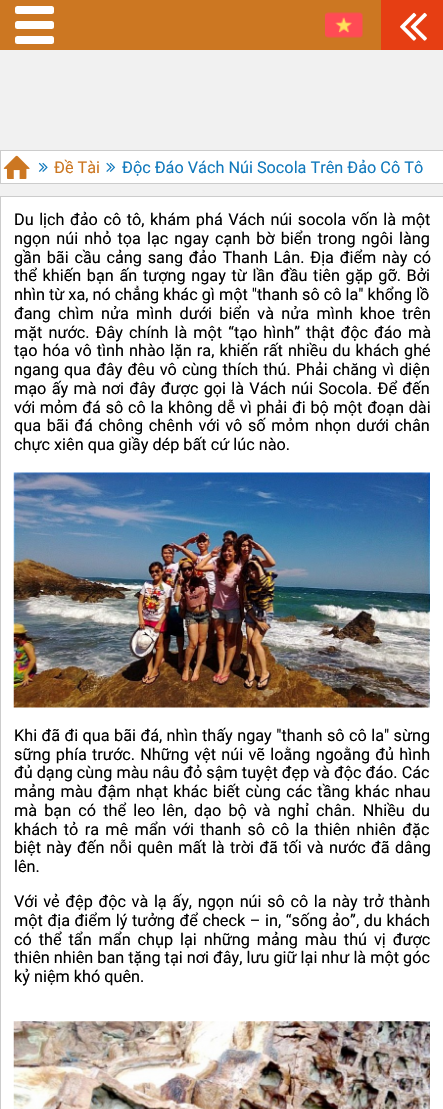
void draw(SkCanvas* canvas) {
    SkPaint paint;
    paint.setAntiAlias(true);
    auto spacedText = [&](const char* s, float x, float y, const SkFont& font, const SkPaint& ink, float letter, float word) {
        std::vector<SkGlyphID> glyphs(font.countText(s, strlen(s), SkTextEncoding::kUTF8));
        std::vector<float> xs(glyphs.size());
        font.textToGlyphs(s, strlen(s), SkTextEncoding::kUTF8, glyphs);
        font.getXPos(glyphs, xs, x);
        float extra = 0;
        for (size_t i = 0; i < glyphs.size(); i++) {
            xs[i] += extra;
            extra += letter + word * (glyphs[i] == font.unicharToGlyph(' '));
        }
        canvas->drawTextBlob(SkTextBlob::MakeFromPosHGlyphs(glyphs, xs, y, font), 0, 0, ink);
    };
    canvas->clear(0xFFF1F1F1);
    paint.setColor(0xFFCC7722);
    canvas->drawRect(SkRect::MakeXYWH(0, 0, 381, 50), paint);
    paint.setColor(0xFFFFFFFF);
    canvas->drawRoundRect(SkRect::MakeXYWH(15, 6, 39, 8), 2.5f, 2.5f, paint);
    canvas->drawRoundRect(SkRect::MakeXYWH(15, 21, 39, 8), 2.5f, 2.5f, paint);
    canvas->drawRoundRect(SkRect::MakeXYWH(15, 36, 39, 8), 2.5f, 2.5f, paint);
    paint.setColor(0xFFE63E13);
    canvas->drawRect(SkRect::MakeXYWH(381, 0, 62, 50), paint);
    canvas->drawImageRect(SkImages::DeferredFromEncodedData(SkData::MakeFromFileName("img1.png")), SkRect::MakeXYWH(400, 12, 27, 29), SkSamplingOptions());
    canvas->drawImageRect(SkImages::DeferredFromEncodedData(SkData::MakeFromFileName("img2.png")), SkRect::MakeXYWH(325, 12, 38, 26), SkSamplingOptions());
    paint.setColor(0xFFFFFFFF);
    canvas->drawRect(SkRect::MakeXYWH(0.5f, 150.5f, 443, 33), paint);
    paint.setStyle(SkPaint::kStroke_Style);
    paint.setStrokeWidth(1);
    paint.setColor(0xFFCCCCCC);
    canvas->drawRect(SkRect::MakeXYWH(0.5f, 150.5f, 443, 33), paint);
    canvas->drawImageRect(SkImages::DeferredFromEncodedData(SkData::MakeFromFileName("img3.png")), SkRect::MakeXYWH(3, 155, 27, 24), SkSamplingOptions());
    canvas->drawImageRect(SkImages::DeferredFromEncodedData(SkData::MakeFromFileName("img4.png")), SkRect::MakeXYWH(38, 162, 10, 10), SkSamplingOptions());
    SkFont font1(fontMgr->matchFamilyStyle("Roboto", SkFontStyle::Normal()), 16.25f);
    font1.setSubpixel(true);
    paint.setStyle(SkPaint::kFill_Style);
    paint.setColor(0xFFCC7722);
    canvas->drawString("Đề Tài", 54, 173, font1, paint);
    canvas->drawImageRect(SkImages::DeferredFromEncodedData(SkData::MakeFromFileName("img5.png")), SkRect::MakeXYWH(106, 162, 10, 10), SkSamplingOptions());
    paint.setColor(0xFF1179BC);
    canvas->drawString("Độc Đáo Vách Núi Socola Trên Đảo Cô Tô", 122, 173, font1, paint);
    paint.setColor(0xFFFFFFFF);
    canvas->drawRect(SkRect::MakeXYWH(0.5f, 196.5f, 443, 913), paint);
    paint.setStyle(SkPaint::kStroke_Style);
    paint.setColor(0xFFCCCCCC);
    canvas->drawRect(SkRect::MakeXYWH(0.5f, 196.5f, 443, 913), paint);
    paint.setStyle(SkPaint::kFill_Style);
    paint.setColor(0xFF000000);
    spacedText("Du lịch đảo cô tô, khám phá Vách núi socola vốn là một", 14, 225, font1, paint, 0, 1.5f);
    spacedText("ngọn núi nhỏ tọa lạc ngay cạnh bờ biển trong ngôi làng", 14, 244, font1, paint, 0, 2);
    spacedText("gần bãi cầu cảng sang đảo Thanh Lân. Địa điểm này có", 14, 263, font1, paint, 0, 1.75f);
    spacedText("thể khiến bạn ấn tượng ngay từ lần đầu tiên gặp gỡ. Bởi", 14, 281, font1, paint, 0, 1.6f);
    canvas->drawString("nhìn từ xa, nó chẳng khác gì một \"thanh sô cô la\" khổng lồ", 14, 300, font1, paint);
    spacedText("đang chìm nửa mình dưới biển và nửa mình khoe trên", 14, 319, font1, paint, 0, 3.25f);
    spacedText("mặt nước. Đây chính là một “tạo hình” thật độc đáo mà", 14, 338, font1, paint, 0, 2);
    spacedText("tạo hóa vô tình nhào lặn ra, khiến rất nhiều du khách ghé", 14, 356, font1, paint, 0, 1);
    spacedText("ngang qua đây đêu vô cùng thích thú. Phải chăng vì diện", 14, 375, font1, paint, 0, 1);
    spacedText("mạo ấy mà nơi đây được gọi là Vách núi Socola. Để đến", 14, 394, font1, paint, 0, 1.25f);
    spacedText("với mỏm đá sô cô la không dễ vì phải đi bộ một đoạn dài", 14, 413, font1, paint, 0, 0.7f);
    spacedText("qua bãi đá chông chênh với vô số mỏm nhọn dưới chân", 14, 431, font1, paint, 0, 1.6f);
    canvas->drawString("chực xiên qua giầy dép bất cứ lúc nào.", 14, 450, font1, paint);
    canvas->drawImageRect(SkImages::DeferredFromEncodedData(SkData::MakeFromFileName("img6.png")), SkRect::MakeXYWH(13, 472, 417, 236), SkSamplingOptions());
    spacedText("Khi đã đi qua bãi đá, nhìn thấy ngay \"thanh sô cô la\" sừng", 14, 741, font1, paint, 0, 0.4f);
    spacedText("sững phía trước. Những vệt núi vẽ loằng ngoằng đủ hình", 14, 760, font1, paint, 0, 1.25f);
    canvas->drawString("đủ dạng cùng màu nâu đỏ sậm tuyệt đẹp và độc đáo. Các", 14, 778, font1, paint);
    spacedText("mảng màu đậm nhạt khác biết cùng các tầng khác nhau", 14, 797, font1, paint, 0, 1.25f);
    spacedText("mà bạn có thể leo lên, dạo bộ và nghỉ chân. Nhiều du", 14, 816, font1, paint, 0, 3.1f);
    spacedText("khách tỏ ra mê mẩn với thanh sô cô la thiên nhiên đặc", 14, 835, font1, paint, 0, 2.25f);
    spacedText("biệt này đến nỗi quên mất là trời đã tối và nước đã dâng", 14, 853, font1, paint, 0, 1.25f);
    canvas->drawString("lên.", 14, 872, font1, paint);
    spacedText("Với vẻ đệp độc và lạ ấy, ngọn núi sô cô la này trở thành", 14, 907, font1, paint, 0, 1.6f);
    spacedText("một địa điểm lý tưởng để check – in, “sống ảo”, du khách", 14, 926, font1, paint, 0, 0.6f);
    spacedText("có thể tẩn mẩn chụp lại những mảng màu thú vị được", 14, 945, font1, paint, 0, 2.9f);
    canvas->drawString("thiên nhiên ban tặng tại nơi đây, lưu giữ lại như là một góc", 14, 963, font1, paint);
    canvas->drawString("kỷ niệm khó quên.", 14, 982, font1, paint);
    canvas->drawImageRect(SkImages::DeferredFromEncodedData(SkData::MakeFromFileName("img7.png")), SkRect::MakeXYWH(13, 1021, 417, 88), SkSamplingOptions());
}
